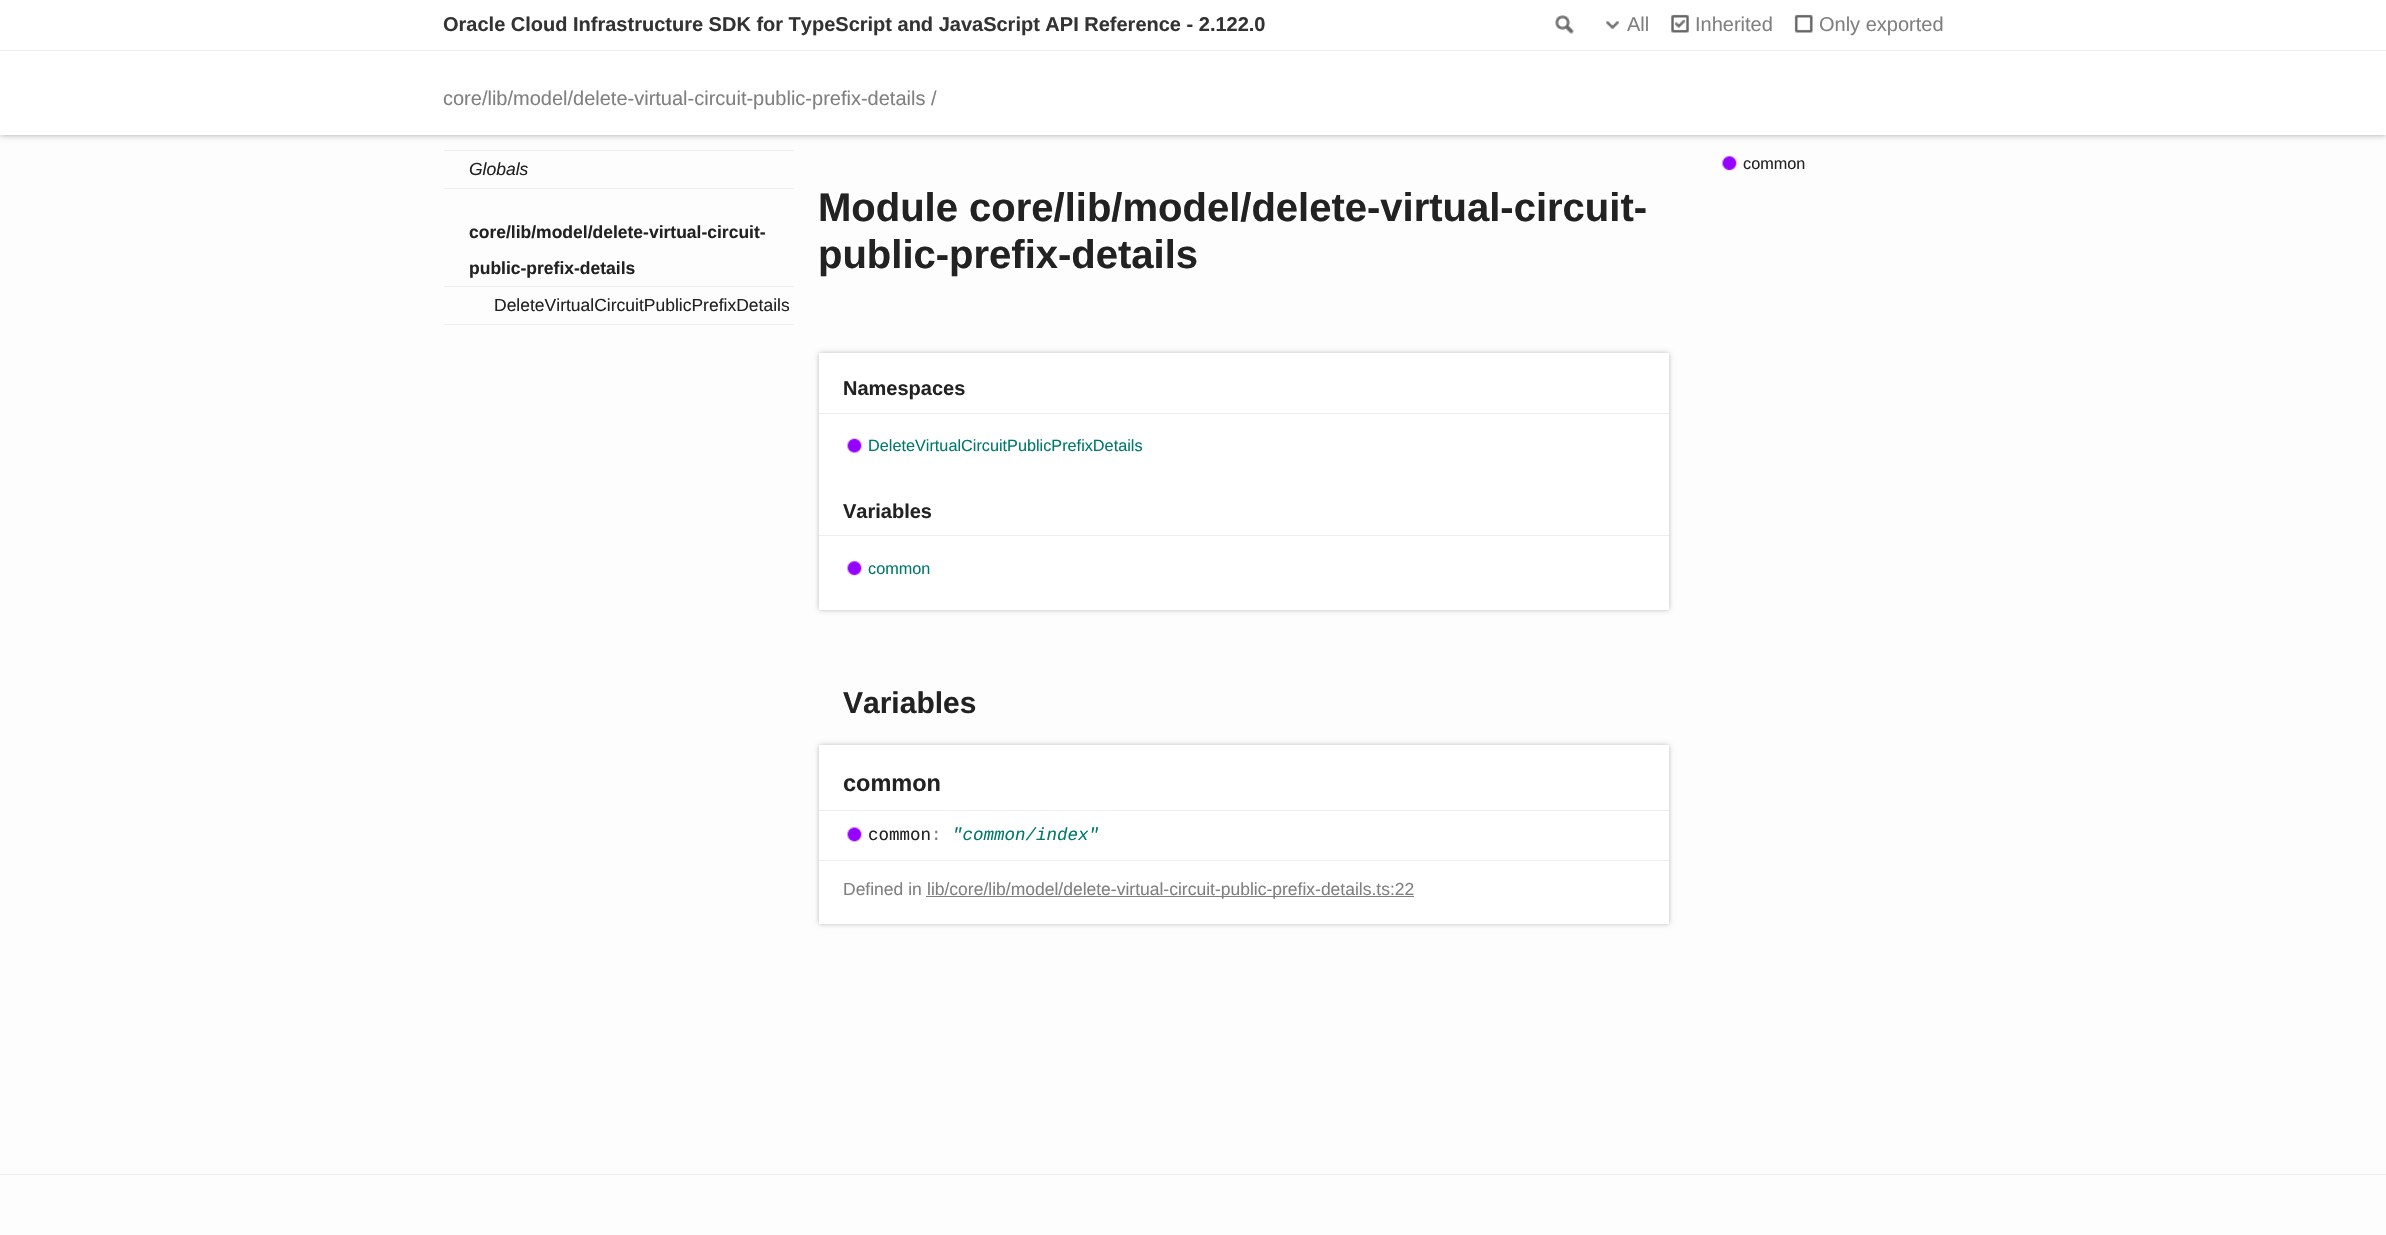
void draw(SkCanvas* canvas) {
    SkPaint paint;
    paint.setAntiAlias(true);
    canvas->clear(0xFFFDFDFD);
    paint.setColor(0x59000000);
    paint.setMaskFilter(SkMaskFilter::MakeBlur(kNormal_SkBlurStyle, 3));
    canvas->drawRect(SkRect::MakeXYWH(0, 0, 2386, 135), paint);
    paint.setMaskFilter(nullptr);
    paint.setColor(0xFFFFFFFF);
    canvas->drawRect(SkRect::MakeXYWH(0, 0, 2386, 135), paint);
    paint.setColor(0xFFEEEEEE);
    canvas->drawRect(SkRect::MakeXYWH(0, 50, 2386, 1), paint);
    SkFont font1(fontMgr->matchFamilyStyle("Liberation Sans", SkFontStyle::Bold()), 20);
    font1.setSubpixel(true);
    paint.setColor(0xFF333333);
    canvas->drawString("Oracle Cloud Infrastructure SDK for TypeScript and JavaScript API Reference - 2.122.0", 443, 31, font1, paint);
    canvas->drawImageRect(SkImages::DeferredFromEncodedData(SkData::MakeFromFileName("img1.png")), SkRect::MakeXYWH(1555, 15, 19, 19), SkSamplingOptions());
    canvas->drawImageRect(SkImages::DeferredFromEncodedData(SkData::MakeFromFileName("img2.png")), SkRect::MakeXYWH(1606, 21, 13, 8), SkSamplingOptions());
    SkFont font2(fontMgr->matchFamilyStyle("Liberation Sans", SkFontStyle::Normal()), 20);
    font2.setSubpixel(true);
    paint.setColor(0xFF808080);
    canvas->drawString("All", 1627, 31, font2, paint);
    canvas->drawImageRect(SkImages::DeferredFromEncodedData(SkData::MakeFromFileName("img3.png")), SkRect::MakeXYWH(1670, 14, 19, 19), SkSamplingOptions());
    canvas->drawString("Inherited", 1695, 31, font2, paint);
    canvas->drawImageRect(SkImages::DeferredFromEncodedData(SkData::MakeFromFileName("img4.png")), SkRect::MakeXYWH(1794, 14, 19, 19), SkSamplingOptions());
    canvas->drawString("Only exported", 1819, 31, font2, paint);
    canvas->drawString("core/lib/model/delete-virtual-circuit-public-prefix-details /", 443, 105, font2, paint);
    paint.setColor(0xFFEEEEEE);
    canvas->drawRect(SkRect::MakeXYWH(444, 324, 350, 1), paint);
    canvas->drawRect(SkRect::MakeXYWH(444, 150, 350, 1), paint);
    SkFont font3(fontMgr->matchFamilyStyle("Liberation Sans", SkFontStyle::Italic()), 17.5f);
    font3.setSubpixel(true);
    paint.setColor(0xFF222222);
    canvas->drawString("Globals", 469, 175, font3, paint);
    paint.setColor(0xFFEEEEEE);
    canvas->drawRect(SkRect::MakeXYWH(444, 188, 350, 1), paint);
    SkFont font4(fontMgr->matchFamilyStyle("Liberation Sans", SkFontStyle::Bold()), 17.5f);
    font4.setSubpixel(true);
    paint.setColor(0xFF222222);
    canvas->drawString("core/lib/model/delete-virtual-circuit-", 469, 238, font4, paint);
    canvas->drawString("public-prefix-details", 469, 274, font4, paint);
    paint.setColor(0xFFEEEEEE);
    canvas->drawRect(SkRect::MakeXYWH(444, 286, 350, 1), paint);
    SkFont font5(fontMgr->matchFamilyStyle("Liberation Sans", SkFontStyle::Normal()), 17.5f);
    font5.setSubpixel(true);
    paint.setColor(0xFF222222);
    canvas->drawString("DeleteVirtualCircuitPublicPrefixDetails", 494, 311, font5, paint);
    SkFont font6(fontMgr->matchFamilyStyle("Liberation Sans", SkFontStyle::Bold()), 40);
    font6.setSubpixel(true);
    canvas->drawString("Module core/lib/model/delete-virtual-circuit-", 818, 221, font6, paint);
    canvas->drawString("public-prefix-details", 818, 268, font6, paint);
    paint.setColor(0x40000000);
    paint.setMaskFilter(SkMaskFilter::MakeBlur(kNormal_SkBlurStyle, 2.5f));
    canvas->drawRect(SkRect::MakeXYWH(819, 353, 850, 257), paint);
    paint.setMaskFilter(nullptr);
    paint.setColor(0xFFFFFFFF);
    canvas->drawRect(SkRect::MakeXYWH(819, 353, 850, 257), paint);
    paint.setColor(0xFFEEEEEE);
    canvas->drawRect(SkRect::MakeXYWH(819, 413, 850, 1), paint);
    paint.setColor(0xFF222222);
    canvas->drawString("Namespaces", 843, 395, font1, paint);
    canvas->drawImageRect(SkImages::DeferredFromEncodedData(SkData::MakeFromFileName("img5.png")), SkRect::MakeXYWH(847, 438, 15, 15), SkSamplingOptions());
    SkFont font7(fontMgr->matchFamilyStyle("Liberation Sans", SkFontStyle::Normal()), 16.25f);
    font7.setSubpixel(true);
    paint.setColor(0xFF00796B);
    canvas->drawString("DeleteVirtualCircuitPublicPrefixDetails", 868, 451, font7, paint);
    paint.setColor(0xFFEEEEEE);
    canvas->drawRect(SkRect::MakeXYWH(819, 535, 850, 1), paint);
    paint.setColor(0xFF222222);
    canvas->drawString("Variables", 843, 518, font1, paint);
    canvas->drawImageRect(SkImages::DeferredFromEncodedData(SkData::MakeFromFileName("img6.png")), SkRect::MakeXYWH(847, 561, 15, 15), SkSamplingOptions());
    paint.setColor(0xFF00796B);
    canvas->drawString("common", 868, 574, font7, paint);
    SkFont font8(fontMgr->matchFamilyStyle("Liberation Sans", SkFontStyle::Bold()), 30);
    font8.setSubpixel(true);
    paint.setColor(0xFF222222);
    canvas->drawString("Variables", 843, 713, font8, paint);
    paint.setColor(0x40000000);
    paint.setMaskFilter(SkMaskFilter::MakeBlur(kNormal_SkBlurStyle, 2.5f));
    canvas->drawRect(SkRect::MakeXYWH(819, 745, 850, 179), paint);
    paint.setMaskFilter(nullptr);
    paint.setColor(0xFFFFFFFF);
    canvas->drawRect(SkRect::MakeXYWH(819, 745, 850, 179), paint);
    SkFont font9(fontMgr->matchFamilyStyle("Liberation Sans", SkFontStyle::Bold()), 23.5f);
    font9.setSubpixel(true);
    paint.setColor(0xFF222222);
    canvas->drawString("common", 843, 791, font9, paint);
    paint.setColor(0xFFEEEEEE);
    canvas->drawRect(SkRect::MakeXYWH(819, 810, 850, 1), paint);
    canvas->drawRect(SkRect::MakeXYWH(819, 860, 850, 1), paint);
    canvas->drawImageRect(SkImages::DeferredFromEncodedData(SkData::MakeFromFileName("img7.png")), SkRect::MakeXYWH(847, 827, 15, 15), SkSamplingOptions());
    SkFont font10(fontMgr->matchFamilyStyle("Liberation Mono", SkFontStyle::Normal()), 17.5f);
    font10.setSubpixel(true);
    paint.setColor(0xFF222222);
    canvas->drawString("common", 868, 840, font10, paint);
    paint.setColor(0xFF808080);
    canvas->drawString(":", 931, 840, font10, paint);
    SkFont font11(fontMgr->matchFamilyStyle("Liberation Mono", SkFontStyle::Italic()), 17.5f);
    font11.setSubpixel(true);
    paint.setColor(0xFF00796B);
    canvas->drawString("\"common/index\"", 952, 840, font11, paint);
    paint.setColor(0xFF808080);
    canvas->drawString("Defined in", 843, 895, font5, paint);
    canvas->drawRect(SkRect::MakeXYWH(926, 896, 488, 1), paint);
    canvas->drawString("lib/core/lib/model/delete-virtual-circuit-public-prefix-details.ts:22", 927, 895, font5, paint);
    canvas->drawImageRect(SkImages::DeferredFromEncodedData(SkData::MakeFromFileName("img8.png")), SkRect::MakeXYWH(1722, 156, 15, 15), SkSamplingOptions());
    paint.setColor(0xFF222222);
    canvas->drawString("common", 1743, 169, font7, paint);
    paint.setColor(0xFFEEEEEE);
    canvas->drawRect(SkRect::MakeXYWH(0, 1174, 2386, 1), paint);
}
